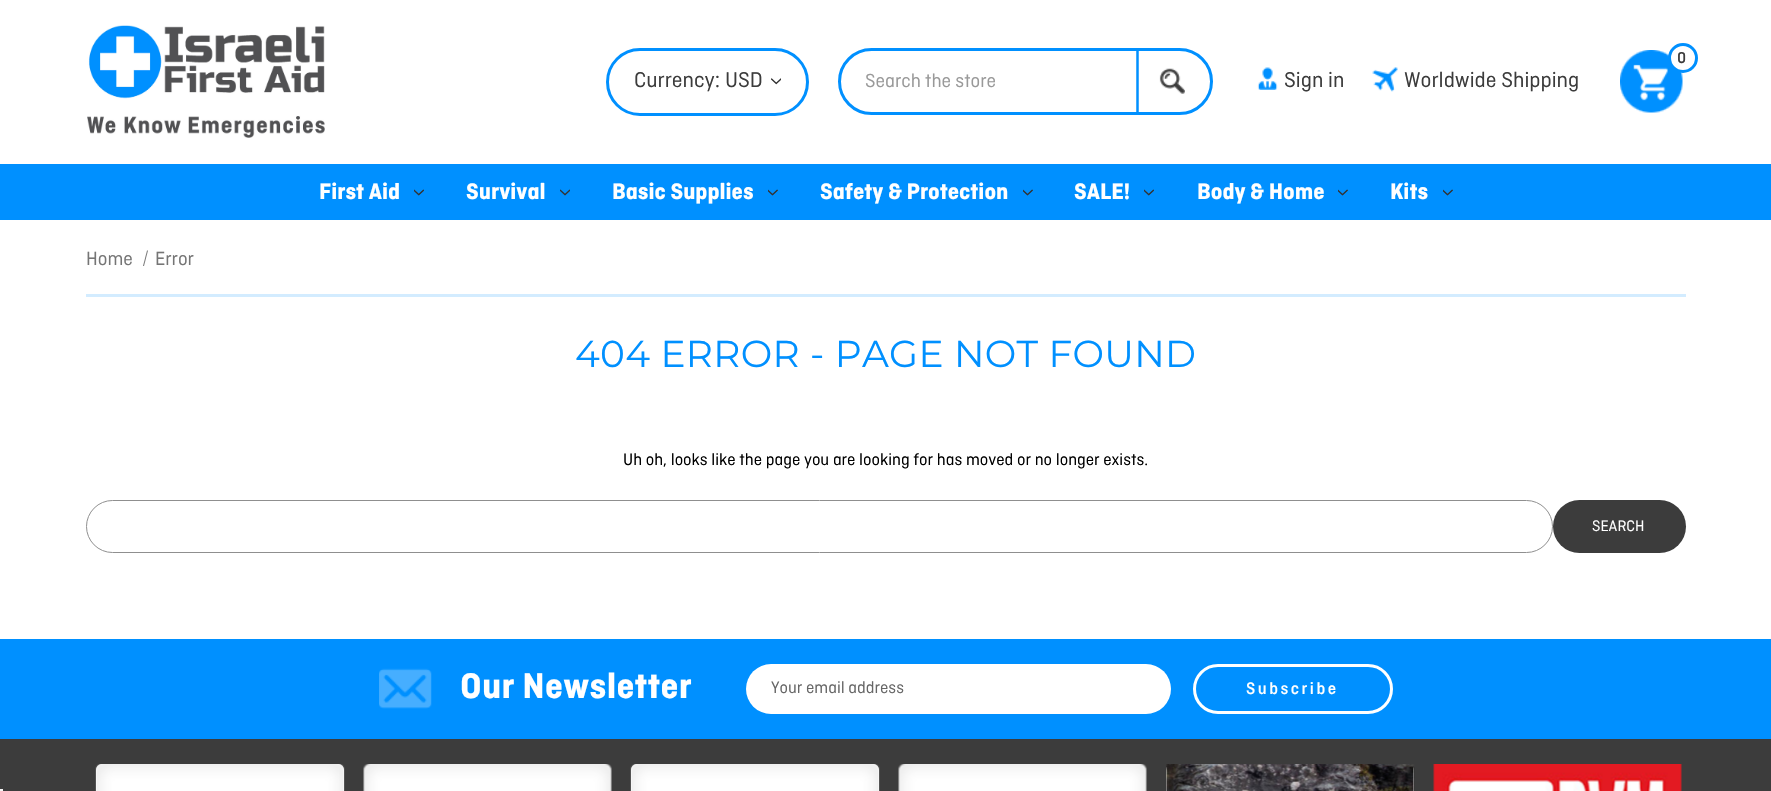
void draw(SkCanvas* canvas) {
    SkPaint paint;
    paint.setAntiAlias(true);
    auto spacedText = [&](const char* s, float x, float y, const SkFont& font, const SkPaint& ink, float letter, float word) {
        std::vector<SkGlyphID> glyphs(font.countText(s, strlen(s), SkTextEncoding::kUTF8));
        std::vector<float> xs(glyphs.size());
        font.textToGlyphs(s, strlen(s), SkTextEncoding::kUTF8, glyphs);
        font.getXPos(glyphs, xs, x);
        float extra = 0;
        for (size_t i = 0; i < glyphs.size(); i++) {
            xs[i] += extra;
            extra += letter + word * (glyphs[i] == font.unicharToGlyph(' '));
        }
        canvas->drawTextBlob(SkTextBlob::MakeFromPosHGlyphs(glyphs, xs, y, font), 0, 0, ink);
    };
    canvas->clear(0xFFFFFFFF);
    canvas->drawImageRect(SkImages::DeferredFromEncodedData(SkData::MakeFromFileName("img1.png")), SkRect::MakeXYWH(87, 25, 238, 113), SkSamplingOptions());
    canvas->drawImageRect(SkImages::DeferredFromEncodedData(SkData::MakeFromFileName("img2.png")), SkRect::MakeXYWH(1620, 50, 63, 63), SkSamplingOptions());
    paint.setColor(0xFFFFFFFF);
    canvas->drawCircle(1683, 58, 13.5f, paint);
    paint.setStyle(SkPaint::kStroke_Style);
    paint.setStrokeWidth(3);
    paint.setColor(0xFF0090FF);
    canvas->drawCircle(1683, 58, 13.5f, paint);
    SkFont font1(fontMgr->matchFamilyStyle("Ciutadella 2", SkFontStyle::Bold()), 16);
    font1.setSubpixel(true);
    paint.setStyle(SkPaint::kFill_Style);
    paint.setColor(0xFF3C3C3C);
    spacedText("0", 1677, 63, font1, paint, 1, 0);
    paint.setStyle(SkPaint::kStroke_Style);
    paint.setColor(0xFF0090FF);
    canvas->drawRoundRect(SkRect::MakeXYWH(607.5f, 49.5f, 200, 65), 32.5f, 32.5f, paint);
    SkFont font2(fontMgr->matchFamilyStyle("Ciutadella", SkFontStyle::Normal()), 22.5f);
    font2.setSubpixel(true);
    paint.setStyle(SkPaint::kFill_Style);
    paint.setColor(0xFF3C3C3C);
    canvas->drawString("Currency: USD", 634, 87, font2, paint);
    canvas->drawImageRect(SkImages::DeferredFromEncodedData(SkData::MakeFromFileName("img3.png")), SkRect::MakeXYWH(771, 78, 10, 7), SkSamplingOptions());
    paint.setStyle(SkPaint::kStroke_Style);
    paint.setColor(0xFF0090FF);
    canvas->drawRoundRect(SkRect::MakeXYWH(839.5f, 49.5f, 372, 64), 32, 32, paint);
    SkFont font3(fontMgr->matchFamilyStyle("Ciutadella", SkFontStyle::Normal()), 20);
    font3.setSubpixel(true);
    paint.setStyle(SkPaint::kFill_Style);
    paint.setColor(0xFF999999);
    canvas->drawString("Search the store", 865, 87, font3, paint);
    canvas->drawImageRect(SkImages::DeferredFromEncodedData(SkData::MakeFromFileName("img4.png")), SkRect::MakeXYWH(1136, 51, 49, 61), SkSamplingOptions());
    canvas->drawImageRect(SkImages::DeferredFromEncodedData(SkData::MakeFromFileName("img5.png")), SkRect::MakeXYWH(1257, 67, 21, 23), SkSamplingOptions());
    paint.setColor(0xFF3C3C3C);
    canvas->drawString("Sign in", 1284, 87, font2, paint);
    canvas->drawImageRect(SkImages::DeferredFromEncodedData(SkData::MakeFromFileName("img6.png")), SkRect::MakeXYWH(1372, 67, 26, 25), SkSamplingOptions());
    canvas->drawString("Worldwide Shipping", 1404, 87, font2, paint);
    paint.setColor(0xFF0090FF);
    canvas->drawRect(SkRect::MakeXYWH(0, 164, 1771, 56), paint);
    SkFont font4(fontMgr->matchFamilyStyle("Ciutadella", SkFontStyle::Bold()), 23.75f);
    font4.setSubpixel(true);
    paint.setColor(0xFFFFFFFF);
    canvas->drawString("First Aid", 319, 199, font4, paint);
    canvas->drawImageRect(SkImages::DeferredFromEncodedData(SkData::MakeFromFileName("img7.png")), SkRect::MakeXYWH(414, 189, 10, 7), SkSamplingOptions());
    canvas->drawString("Survival", 466, 199, font4, paint);
    canvas->drawImageRect(SkImages::DeferredFromEncodedData(SkData::MakeFromFileName("img8.png")), SkRect::MakeXYWH(560, 189, 10, 7), SkSamplingOptions());
    canvas->drawString("Basic Supplies", 612, 199, font4, paint);
    canvas->drawImageRect(SkImages::DeferredFromEncodedData(SkData::MakeFromFileName("img9.png")), SkRect::MakeXYWH(768, 189, 10, 7), SkSamplingOptions());
    canvas->drawString("Safety & Protection", 820, 199, font4, paint);
    canvas->drawImageRect(SkImages::DeferredFromEncodedData(SkData::MakeFromFileName("img9.png")), SkRect::MakeXYWH(1023, 189, 10, 7), SkSamplingOptions());
    canvas->drawString("SALE!", 1074, 199, font4, paint);
    canvas->drawImageRect(SkImages::DeferredFromEncodedData(SkData::MakeFromFileName("img7.png")), SkRect::MakeXYWH(1144, 189, 10, 7), SkSamplingOptions());
    canvas->drawString("Body & Home", 1197, 199, font4, paint);
    canvas->drawImageRect(SkImages::DeferredFromEncodedData(SkData::MakeFromFileName("img9.png")), SkRect::MakeXYWH(1338, 189, 10, 7), SkSamplingOptions());
    canvas->drawString("Kits", 1390, 199, font4, paint);
    canvas->drawImageRect(SkImages::DeferredFromEncodedData(SkData::MakeFromFileName("img9.png")), SkRect::MakeXYWH(1443, 189, 10, 7), SkSamplingOptions());
    paint.setColor(0xFFD3ECFF);
    canvas->drawRect(SkRect::MakeXYWH(86, 294, 1600, 3), paint);
    paint.setColor(0xFF757575);
    canvas->drawString("Home", 86, 265, font3, paint);
    canvas->drawPath(SkPathBuilder().moveTo(147, 250.5f).lineTo(148, 250.5f).lineTo(144, 266).lineTo(143, 266).close().detach(), paint);
    canvas->drawString("Error", 155, 265, font3, paint);
    SkFont font5(fontMgr->matchFamilyStyle("Montserrat", SkFontStyle::Normal()), 37.5f);
    font5.setSubpixel(true);
    paint.setColor(0xFF0090FF);
    spacedText("404 ERROR - PAGE NOT FOUND", 575, 367, font5, paint, 0.3f, 0);
    SkFont font6(fontMgr->matchFamilyStyle("Ciutadella", SkFontStyle::Normal()), 17.5f);
    font6.setSubpixel(true);
    paint.setColor(0xFF000000);
    canvas->drawString("Uh oh, looks like the page you are looking for has moved or no longer exists.", 623, 465, font6, paint);
    paint.setStyle(SkPaint::kStroke_Style);
    paint.setStrokeWidth(1);
    paint.setColor(0xFF8F8F8F);
    canvas->drawRoundRect(SkRect::MakeXYWH(86.5f, 500.5f, 1466, 52), 26, 26, paint);
    paint.setStyle(SkPaint::kFill_Style);
    paint.setColor(0xFF3C3C3C);
    canvas->drawRoundRect(SkRect::MakeXYWH(1553, 500, 133, 53), 26.5f, 26.5f, paint);
    SkFont font7(fontMgr->matchFamilyStyle("Ciutadella", SkFontStyle::Normal()), 16);
    font7.setSubpixel(true);
    paint.setColor(0xFFFFFFFF);
    canvas->drawString("SEARCH", 1592, 531, font7, paint);
    paint.setColor(0xFF0090FF);
    canvas->drawRect(SkRect::MakeXYWH(0, 639, 1771, 100), paint);
    canvas->drawImageRect(SkImages::DeferredFromEncodedData(SkData::MakeFromFileName("img10.png")), SkRect::MakeXYWH(379, 668, 53, 41), SkSamplingOptions());
    SkFont font8(fontMgr->matchFamilyStyle("Ciutadella", SkFontStyle::Bold()), 37.5f);
    font8.setSubpixel(true);
    paint.setColor(0xFFFFFFFF);
    spacedText("Our Newsletter", 460, 698, font8, paint, 0.3f, 0);
    canvas->drawRoundRect(SkRect::MakeXYWH(746, 664, 425, 50), 25, 25, paint);
    paint.setColor(0xFF666666);
    canvas->drawString("Your email address", 771, 693, font6, paint);
    paint.setStyle(SkPaint::kStroke_Style);
    paint.setStrokeWidth(3);
    paint.setColor(0xFFFFFFFF);
    canvas->drawRoundRect(SkRect::MakeXYWH(1194.5f, 665.5f, 197, 47), 23.5f, 23.5f, paint);
    SkFont font9(fontMgr->matchFamilyStyle("Ciutadella", SkFontStyle(500, SkFontStyle::kNormal_Width, SkFontStyle::kUpright_Slant)), 17.5f);
    font9.setSubpixel(true);
    paint.setStyle(SkPaint::kFill_Style);
    spacedText("Subscribe", 1246, 694, font9, paint, 2.5f, 0);
    paint.setColor(0xFF3C3C3C);
    canvas->drawRect(SkRect::MakeXYWH(0, 739, 1771, 52), paint);
    paint.setColor(0xFFFFFFFF);
    canvas->drawRoundRect(SkRect::MakeXYWH(96, 764, 248, 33), 6, 6, paint);
    canvas->drawImageRect(SkImages::DeferredFromEncodedData(SkData::MakeFromFileName("img11.png")), SkRect::MakeXYWH(95, 764, 250, 27), SkSamplingOptions());
    canvas->drawImageRect(SkImages::DeferredFromEncodedData(SkData::MakeFromFileName("img12.png")), SkRect::MakeXYWH(363, 764, 249, 27), SkSamplingOptions());
    canvas->drawRoundRect(SkRect::MakeXYWH(631, 764, 248, 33), 6, 6, paint);
    canvas->drawImageRect(SkImages::DeferredFromEncodedData(SkData::MakeFromFileName("img13.png")), SkRect::MakeXYWH(630, 764, 250, 27), SkSamplingOptions());
    canvas->drawImageRect(SkImages::DeferredFromEncodedData(SkData::MakeFromFileName("img12.png")), SkRect::MakeXYWH(898, 764, 249, 27), SkSamplingOptions());
    canvas->drawRoundRect(SkRect::MakeXYWH(1166, 764, 248, 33), 6, 6, paint);
    canvas->drawImageRect(SkImages::DeferredFromEncodedData(SkData::MakeFromFileName("img14.png")), SkRect::MakeXYWH(1166, 764, 249, 27), SkSamplingOptions());
    canvas->drawImageRect(SkImages::DeferredFromEncodedData(SkData::MakeFromFileName("img15.png")), SkRect::MakeXYWH(1433, 764, 249, 27), SkSamplingOptions());
    paint.setColor(0xFFF5F5F5);
    canvas->drawRect(SkRect::MakeXYWH(0, 789, 3, 2), paint);
}
